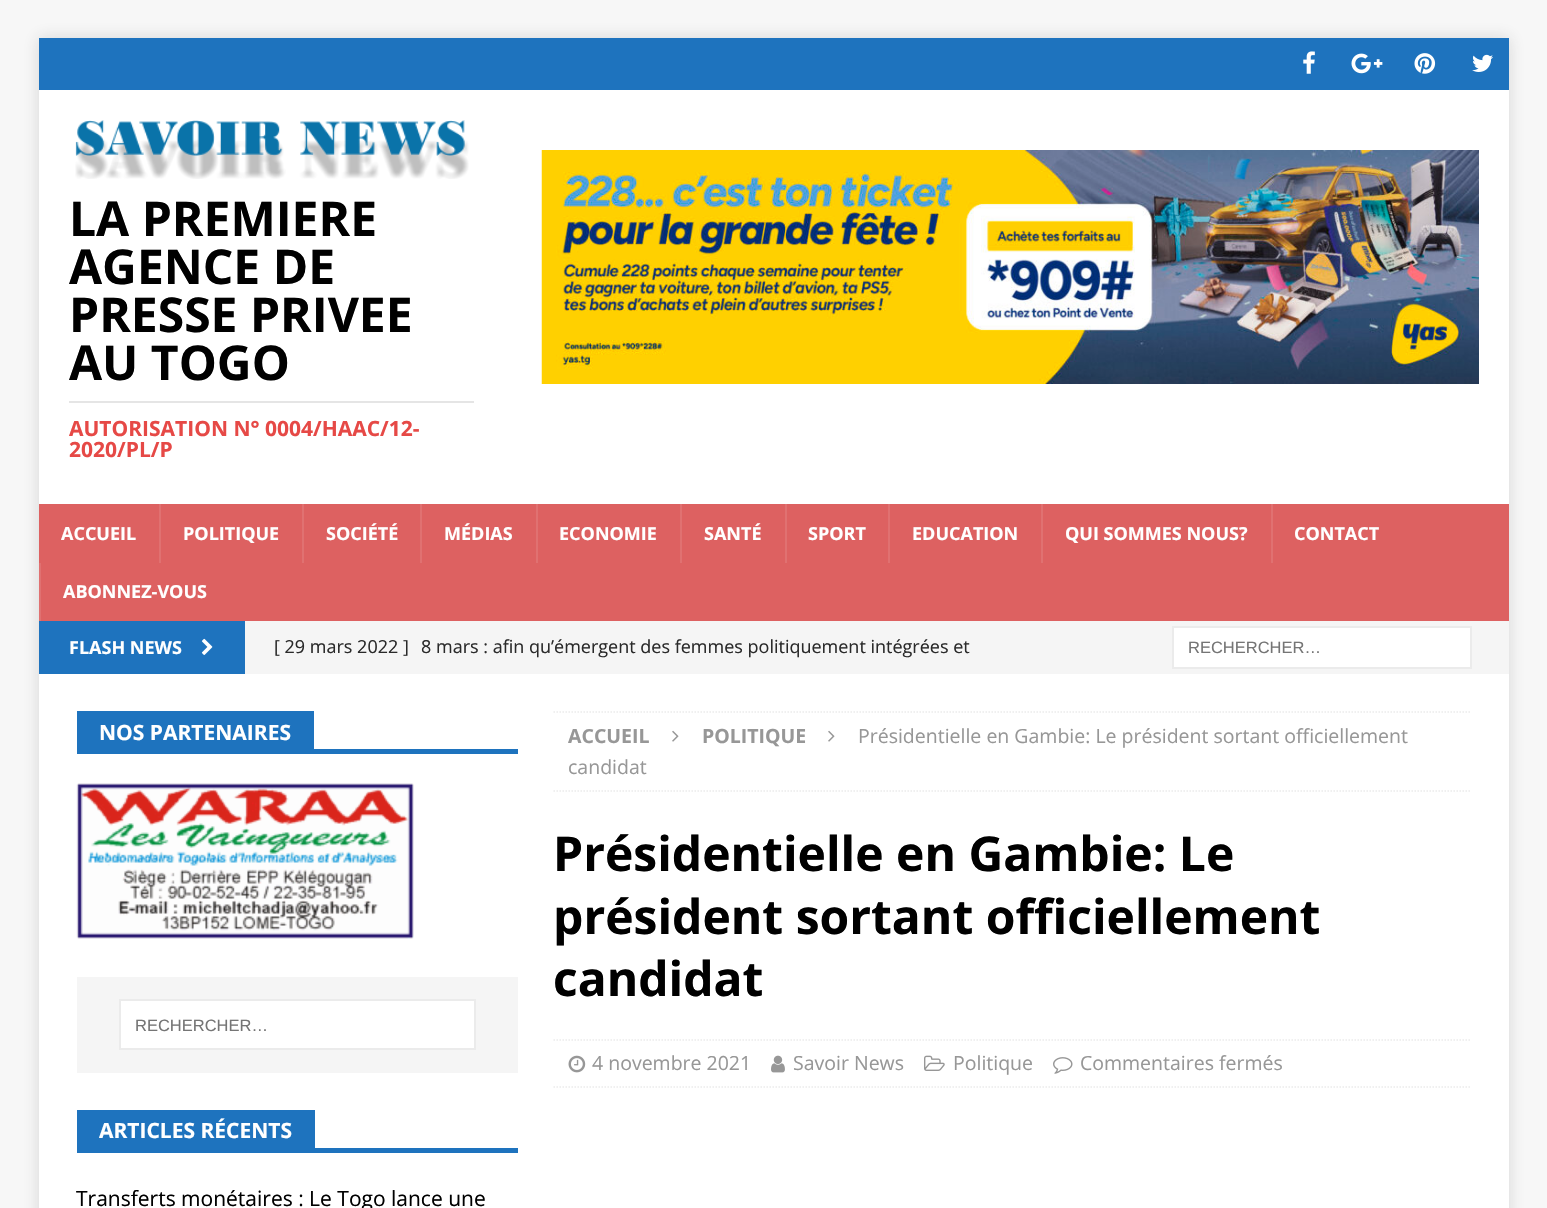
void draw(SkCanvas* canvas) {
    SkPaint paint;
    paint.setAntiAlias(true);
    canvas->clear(0xFFF7F7F7);
    paint.setColor(0x2B323232);
    paint.setMaskFilter(SkMaskFilter::MakeBlur(kNormal_SkBlurStyle, 7.5f));
    canvas->drawRect(SkRect::MakeXYWH(39, 38, 1470, 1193), paint);
    paint.setMaskFilter(nullptr);
    paint.setColor(0xFF1E73BE);
    canvas->drawRect(SkRect::MakeXYWH(39, 38, 1470, 52), paint);
    canvas->drawImageRect(SkImages::DeferredFromEncodedData(SkData::MakeFromFileName("img1.png")), SkRect::MakeXYWH(1303, 51, 12, 23), SkSamplingOptions());
    canvas->drawImageRect(SkImages::DeferredFromEncodedData(SkData::MakeFromFileName("img2.png")), SkRect::MakeXYWH(1351, 53, 32, 21), SkSamplingOptions());
    canvas->drawImageRect(SkImages::DeferredFromEncodedData(SkData::MakeFromFileName("img3.png")), SkRect::MakeXYWH(1414, 53, 22, 21), SkSamplingOptions());
    canvas->drawImageRect(SkImages::DeferredFromEncodedData(SkData::MakeFromFileName("img4.png")), SkRect::MakeXYWH(1472, 54, 21, 18), SkSamplingOptions());
    paint.setColor(0xFFFFFFFF);
    canvas->drawRect(SkRect::MakeXYWH(39, 90, 1470, 414), paint);
    canvas->drawImageRect(SkImages::DeferredFromEncodedData(SkData::MakeFromFileName("img5.png")), SkRect::MakeXYWH(75, 120, 394, 59), SkSamplingOptions());
    SkFont font1(fontMgr->matchFamilyStyle("Open Sans", SkFontStyle::Bold()), 48);
    font1.setSubpixel(true);
    paint.setColor(0xFF000000);
    canvas->drawString("LA PREMIERE", 69, 236, font1, paint);
    canvas->drawString("AGENCE DE", 69, 284, font1, paint);
    canvas->drawString("PRESSE PRIVEE", 69, 332, font1, paint);
    canvas->drawString("AU TOGO", 69, 380, font1, paint);
    paint.setColor(0xFFE5E5E5);
    canvas->drawRect(SkRect::MakeXYWH(69, 401, 405, 2), paint);
    SkFont font2(fontMgr->matchFamilyStyle("Open Sans", SkFontStyle::Bold()), 21);
    font2.setSubpixel(true);
    paint.setColor(0xFFE64946);
    canvas->drawString("AUTORISATION N° 0004/HAAC/12-", 69, 436, font2, paint);
    canvas->drawString("2020/PL/P", 69, 457, font2, paint);
    canvas->drawImageRect(SkImages::DeferredFromEncodedData(SkData::MakeFromFileName("img6.png")), SkRect::MakeXYWH(541, 150, 938, 234), SkSamplingOptions());
    paint.setColor(0xFFDD6161);
    canvas->drawRect(SkRect::MakeXYWH(39, 504, 1470, 117), paint);
    SkFont font3(fontMgr->matchFamilyStyle("Open Sans", SkFontStyle::Bold()), 18);
    font3.setSubpixel(true);
    paint.setColor(0xFFFFFFFF);
    canvas->drawString("ACCUEIL", 61, 540, font3, paint);
    paint.setColor(0xFFE07171);
    canvas->drawRect(SkRect::MakeXYWH(159, 504, 2, 59), paint);
    paint.setColor(0xFFFFFFFF);
    canvas->drawString("POLITIQUE", 183, 540, font3, paint);
    paint.setColor(0xFFE07171);
    canvas->drawRect(SkRect::MakeXYWH(302, 504, 2, 59), paint);
    paint.setColor(0xFFFFFFFF);
    canvas->drawString("SOCIÉTÉ", 326, 540, font3, paint);
    paint.setColor(0xFFE07171);
    canvas->drawRect(SkRect::MakeXYWH(420, 504, 2, 59), paint);
    paint.setColor(0xFFFFFFFF);
    canvas->drawString("MÉDIAS", 444, 540, font3, paint);
    paint.setColor(0xFFE07171);
    canvas->drawRect(SkRect::MakeXYWH(536, 504, 2, 59), paint);
    paint.setColor(0xFFFFFFFF);
    canvas->drawString("ECONOMIE", 559, 540, font3, paint);
    paint.setColor(0xFFE07171);
    canvas->drawRect(SkRect::MakeXYWH(680, 504, 2, 59), paint);
    paint.setColor(0xFFFFFFFF);
    canvas->drawString("SANTÉ", 704, 540, font3, paint);
    paint.setColor(0xFFE07171);
    canvas->drawRect(SkRect::MakeXYWH(785, 504, 2, 59), paint);
    paint.setColor(0xFFFFFFFF);
    canvas->drawString("SPORT", 808, 540, font3, paint);
    paint.setColor(0xFFE07171);
    canvas->drawRect(SkRect::MakeXYWH(888, 504, 2, 59), paint);
    paint.setColor(0xFFFFFFFF);
    canvas->drawString("EDUCATION", 912, 540, font3, paint);
    paint.setColor(0xFFE07171);
    canvas->drawRect(SkRect::MakeXYWH(1041, 504, 2, 59), paint);
    paint.setColor(0xFFFFFFFF);
    canvas->drawString("QUI SOMMES NOUS?", 1065, 540, font3, paint);
    paint.setColor(0xFFE07171);
    canvas->drawRect(SkRect::MakeXYWH(1271, 504, 2, 59), paint);
    paint.setColor(0xFFFFFFFF);
    canvas->drawString("CONTACT", 1294, 540, font3, paint);
    paint.setColor(0xFFE07171);
    canvas->drawRect(SkRect::MakeXYWH(39, 563, 2, 58), paint);
    paint.setColor(0xFFFFFFFF);
    canvas->drawString("ABONNEZ-VOUS", 63, 598, font3, paint);
    paint.setColor(0xFFF5F5F5);
    canvas->drawRect(SkRect::MakeXYWH(245, 621, 1264, 53), paint);
    paint.setColor(0xFF1E73BE);
    canvas->drawRect(SkRect::MakeXYWH(39, 621, 206, 53), paint);
    paint.setColor(0xFFFFFFFF);
    canvas->drawString("FLASH NEWS", 69, 654, font3, paint);
    canvas->drawImageRect(SkImages::DeferredFromEncodedData(SkData::MakeFromFileName("img7.png")), SkRect::MakeXYWH(201, 638, 12, 17), SkSamplingOptions());
    SkFont font4(fontMgr->matchFamilyStyle("Open Sans", SkFontStyle::Normal()), 18);
    font4.setSubpixel(true);
    paint.setColor(0xFF2A2A2A);
    canvas->drawString("[ 29 mars 2022 ]", 274, 653, font4, paint);
    canvas->drawString("8 mars : afin qu’émergent des femmes politiquement intégrées et", 421, 653, font4, paint);
    paint.setColor(0xFFFFFFFF);
    canvas->drawRect(SkRect::MakeXYWH(1173, 627, 298, 41), paint);
    paint.setStyle(SkPaint::kStroke_Style);
    paint.setStrokeWidth(2);
    paint.setColor(0xFFEBEBEB);
    canvas->drawRect(SkRect::MakeXYWH(1173, 627, 298, 41), paint);
    SkFont font5(fontMgr->matchFamilyStyle("Liberation Sans", SkFontStyle::Normal()), 16.5f);
    font5.setSubpixel(true);
    paint.setStyle(SkPaint::kFill_Style);
    paint.setColor(0xFF757575);
    canvas->drawString("RECHERCHER…", 1188, 653, font5, paint);
    paint.setColor(0xFFFFFFFF);
    canvas->drawRect(SkRect::MakeXYWH(39, 674, 1470, 534), paint);
    paint.setColor(0xFF1E73BE);
    canvas->drawRect(SkRect::MakeXYWH(77, 749, 441, 5), paint);
    canvas->drawRect(SkRect::MakeXYWH(77, 711, 237, 38), paint);
    paint.setColor(0xFFFFFFFF);
    canvas->drawString("NOS PARTENAIRES", 99, 740, font2, paint);
    canvas->drawImageRect(SkImages::DeferredFromEncodedData(SkData::MakeFromFileName("img8.png")), SkRect::MakeXYWH(76, 783, 338, 156), SkSamplingOptions());
    paint.setColor(0xFFF5F5F5);
    canvas->drawRect(SkRect::MakeXYWH(77, 977, 441, 96), paint);
    paint.setColor(0xFFFFFFFF);
    canvas->drawRect(SkRect::MakeXYWH(120, 1000, 355, 49), paint);
    paint.setStyle(SkPaint::kStroke_Style);
    paint.setColor(0xFFEBEBEB);
    canvas->drawRect(SkRect::MakeXYWH(120, 1000, 355, 49), paint);
    paint.setStyle(SkPaint::kFill_Style);
    paint.setColor(0xFF757575);
    canvas->drawString("RECHERCHER…", 135, 1031, font5, paint);
    paint.setColor(0xFF1E73BE);
    canvas->drawRect(SkRect::MakeXYWH(77, 1148, 441, 5), paint);
    canvas->drawRect(SkRect::MakeXYWH(77, 1110, 238, 38), paint);
    paint.setColor(0xFFFFFFFF);
    canvas->drawString("ARTICLES RÉCENTS", 99, 1138, font2, paint);
    SkFont font6(fontMgr->matchFamilyStyle("Open Sans", SkFontStyle::Normal()), 21);
    font6.setSubpixel(true);
    paint.setColor(0xFF000000);
    canvas->drawString("Transferts monétaires : Le Togo lance une", 76, 1206, font6, paint);
    paint.setStyle(SkPaint::kStroke_Style);
    paint.setStrokeWidth(1.5f);
    paint.setColor(0xFFEBEBEB);
    paint.setPathEffect(SkDashPathEffect::Make({{1.5f, 1.5f}}, 0));
    canvas->drawPath(SkPathBuilder().moveTo(553.5f, 712).lineTo(1471.5f, 712).detach(), paint);
    paint.setPathEffect(nullptr);
    paint.setPathEffect(SkDashPathEffect::Make({{1.5f, 1.5f}}, 0));
    canvas->drawPath(SkPathBuilder().moveTo(553.5f, 791).lineTo(1471.5f, 791).detach(), paint);
    paint.setPathEffect(nullptr);
    SkFont font7(fontMgr->matchFamilyStyle("Open Sans", SkFontStyle::Bold()), 19.5f);
    font7.setSubpixel(true);
    paint.setStyle(SkPaint::kFill_Style);
    paint.setColor(0xFF979797);
    canvas->drawString("ACCUEIL", 568, 743, font7, paint);
    canvas->drawImageRect(SkImages::DeferredFromEncodedData(SkData::MakeFromFileName("img9.png")), SkRect::MakeXYWH(672, 730, 7, 12), SkSamplingOptions());
    canvas->drawString("POLITIQUE", 702, 743, font7, paint);
    canvas->drawImageRect(SkImages::DeferredFromEncodedData(SkData::MakeFromFileName("img9.png")), SkRect::MakeXYWH(828, 730, 7, 12), SkSamplingOptions());
    SkFont font8(fontMgr->matchFamilyStyle("Open Sans", SkFontStyle::Normal()), 19.5f);
    font8.setSubpixel(true);
    canvas->drawString("Présidentielle en Gambie: Le président sortant officiellement", 858, 743, font8, paint);
    canvas->drawString("candidat", 568, 774, font8, paint);
    paint.setColor(0xFF000000);
    canvas->drawString("Présidentielle en Gambie: Le", 553, 871, font1, paint);
    canvas->drawString("président sortant officiellement", 553, 934, font1, paint);
    canvas->drawString("candidat", 553, 996, font1, paint);
    paint.setStyle(SkPaint::kStroke_Style);
    paint.setColor(0xFFEBEBEB);
    paint.setPathEffect(SkDashPathEffect::Make({{1.5f, 1.5f}}, 0));
    canvas->drawPath(SkPathBuilder().moveTo(553.5f, 1040).lineTo(1471.5f, 1040).detach(), paint);
    paint.setPathEffect(nullptr);
    paint.setPathEffect(SkDashPathEffect::Make({{1.5f, 1.5f}}, 0));
    canvas->drawPath(SkPathBuilder().moveTo(553.5f, 1087).lineTo(1471.5f, 1087).detach(), paint);
    paint.setPathEffect(nullptr);
    canvas->drawImageRect(SkImages::DeferredFromEncodedData(SkData::MakeFromFileName("img10.png")), SkRect::MakeXYWH(568, 1055, 18, 18), SkSamplingOptions());
    paint.setStyle(SkPaint::kFill_Style);
    paint.setColor(0xFF979797);
    canvas->drawString("4 novembre 2021", 592, 1070, font8, paint);
    canvas->drawImageRect(SkImages::DeferredFromEncodedData(SkData::MakeFromFileName("img11.png")), SkRect::MakeXYWH(771, 1055, 14, 18), SkSamplingOptions());
    canvas->drawString("Savoir News", 793, 1070, font8, paint);
    canvas->drawImageRect(SkImages::DeferredFromEncodedData(SkData::MakeFromFileName("img12.png")), SkRect::MakeXYWH(924, 1055, 21, 16), SkSamplingOptions());
    canvas->drawString("Politique", 953, 1070, font8, paint);
    canvas->drawImageRect(SkImages::DeferredFromEncodedData(SkData::MakeFromFileName("img13.png")), SkRect::MakeXYWH(1053, 1057, 20, 17), SkSamplingOptions());
    canvas->drawString("Commentaires fermés", 1080, 1070, font8, paint);
}
